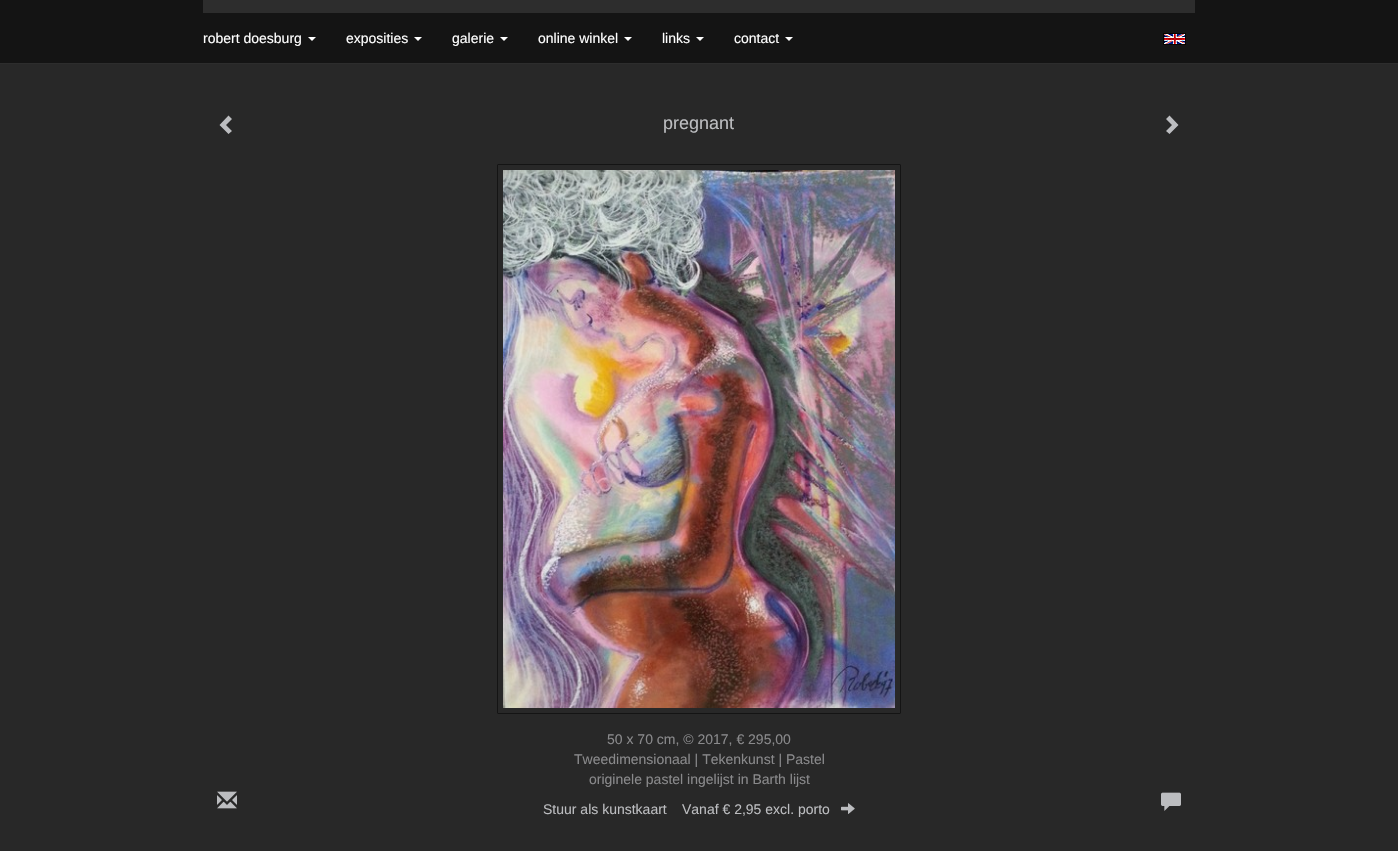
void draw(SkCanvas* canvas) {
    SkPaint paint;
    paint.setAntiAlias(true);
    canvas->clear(0xFF282828);
    paint.setColor(0xFF141414);
    canvas->drawRect(SkRect::MakeXYWH(0, 0, 1398, 63), paint);
    paint.setColor(0xFF2D2D2D);
    canvas->drawRect(SkRect::MakeXYWH(203, 0, 992, 13), paint);
    canvas->drawRect(SkRect::MakeXYWH(0, 63, 1398, 1), paint);
    SkFont font1(fontMgr->matchFamilyStyle("Liberation Sans", SkFontStyle::Normal()), 14);
    font1.setSubpixel(true);
    paint.setColor(0xFFFFFFFF);
    canvas->drawString("robert doesburg", 203, 43, font1, paint);
    canvas->drawPath(SkPathBuilder().moveTo(308, 37).lineTo(316, 37).lineTo(312, 41).close().detach(), paint);
    canvas->drawString("exposities", 346, 43, font1, paint);
    canvas->drawPath(SkPathBuilder().moveTo(414, 37).lineTo(422, 37).lineTo(418, 41).close().detach(), paint);
    canvas->drawString("galerie", 452, 43, font1, paint);
    canvas->drawPath(SkPathBuilder().moveTo(500, 37).lineTo(508, 37).lineTo(504, 41).close().detach(), paint);
    canvas->drawString("online winkel", 538, 43, font1, paint);
    canvas->drawPath(SkPathBuilder().moveTo(624, 37).lineTo(632, 37).lineTo(628, 41).close().detach(), paint);
    canvas->drawString("links", 662, 43, font1, paint);
    canvas->drawPath(SkPathBuilder().moveTo(696, 37).lineTo(704, 37).lineTo(700, 41).close().detach(), paint);
    canvas->drawString("contact", 734, 43, font1, paint);
    canvas->drawPath(SkPathBuilder().moveTo(785, 37).lineTo(793, 37).lineTo(789, 41).close().detach(), paint);
    canvas->drawImageRect(SkImages::DeferredFromEncodedData(SkData::MakeFromFileName("img1.png")), SkRect::MakeXYWH(1163, 33, 23, 12), SkSamplingOptions());
    paint.setColor(0xFFBCBDC0);
    canvas->drawPath(SkPathBuilder().moveTo(232, 119).lineTo(226, 125).lineTo(232, 131).lineTo(228.5f, 134).lineTo(219.5f, 125).lineTo(228.5f, 115.5f).close().detach(), paint);
    SkFont font2(fontMgr->matchFamilyStyle("Liberation Sans", SkFontStyle::Normal()), 18);
    font2.setSubpixel(true);
    canvas->drawString("pregnant", 663, 129, font2, paint);
    canvas->drawPath(SkPathBuilder().moveTo(1178.5f, 125).lineTo(1169.5f, 134).lineTo(1166, 131).lineTo(1172, 125).lineTo(1166, 119).lineTo(1169.5f, 115.5f).close().detach(), paint);
    paint.setStyle(SkPaint::kStroke_Style);
    paint.setStrokeWidth(1);
    paint.setColor(0xFF141414);
    canvas->drawRoundRect(SkRect::MakeXYWH(497.5f, 164.5f, 403, 549), 0.5f, 0.5f, paint);
    canvas->drawImageRect(SkImages::DeferredFromEncodedData(SkData::MakeFromFileName("img2.png")), SkRect::MakeXYWH(503, 170, 392, 538), SkSamplingOptions());
    paint.setStyle(SkPaint::kFill_Style);
    paint.setColor(0xFF89898B);
    canvas->drawString("50 x 70 cm, © 2017, € 295,00", 607, 744, font1, paint);
    canvas->drawString("Tweedimensionaal | Tekenkunst | Pastel", 574, 764, font1, paint);
    canvas->drawString("originele pastel ingelijst in Barth lijst", 589, 784, font1, paint);
    canvas->drawImageRect(SkImages::DeferredFromEncodedData(SkData::MakeFromFileName("img3.png")), SkRect::MakeXYWH(217, 791, 20, 18), SkSamplingOptions());
    paint.setColor(0xFFBCBDC0);
    canvas->drawString("Stuur als kunstkaart", 543, 814, font1, paint);
    canvas->drawString("Vanaf € 2,95 excl. porto", 682, 814, font1, paint);
    canvas->drawImageRect(SkImages::DeferredFromEncodedData(SkData::MakeFromFileName("img4.png")), SkRect::MakeXYWH(841, 803, 14, 11), SkSamplingOptions());
    canvas->drawImageRect(SkImages::DeferredFromEncodedData(SkData::MakeFromFileName("img5.png")), SkRect::MakeXYWH(1161, 792, 20, 19), SkSamplingOptions());
}
